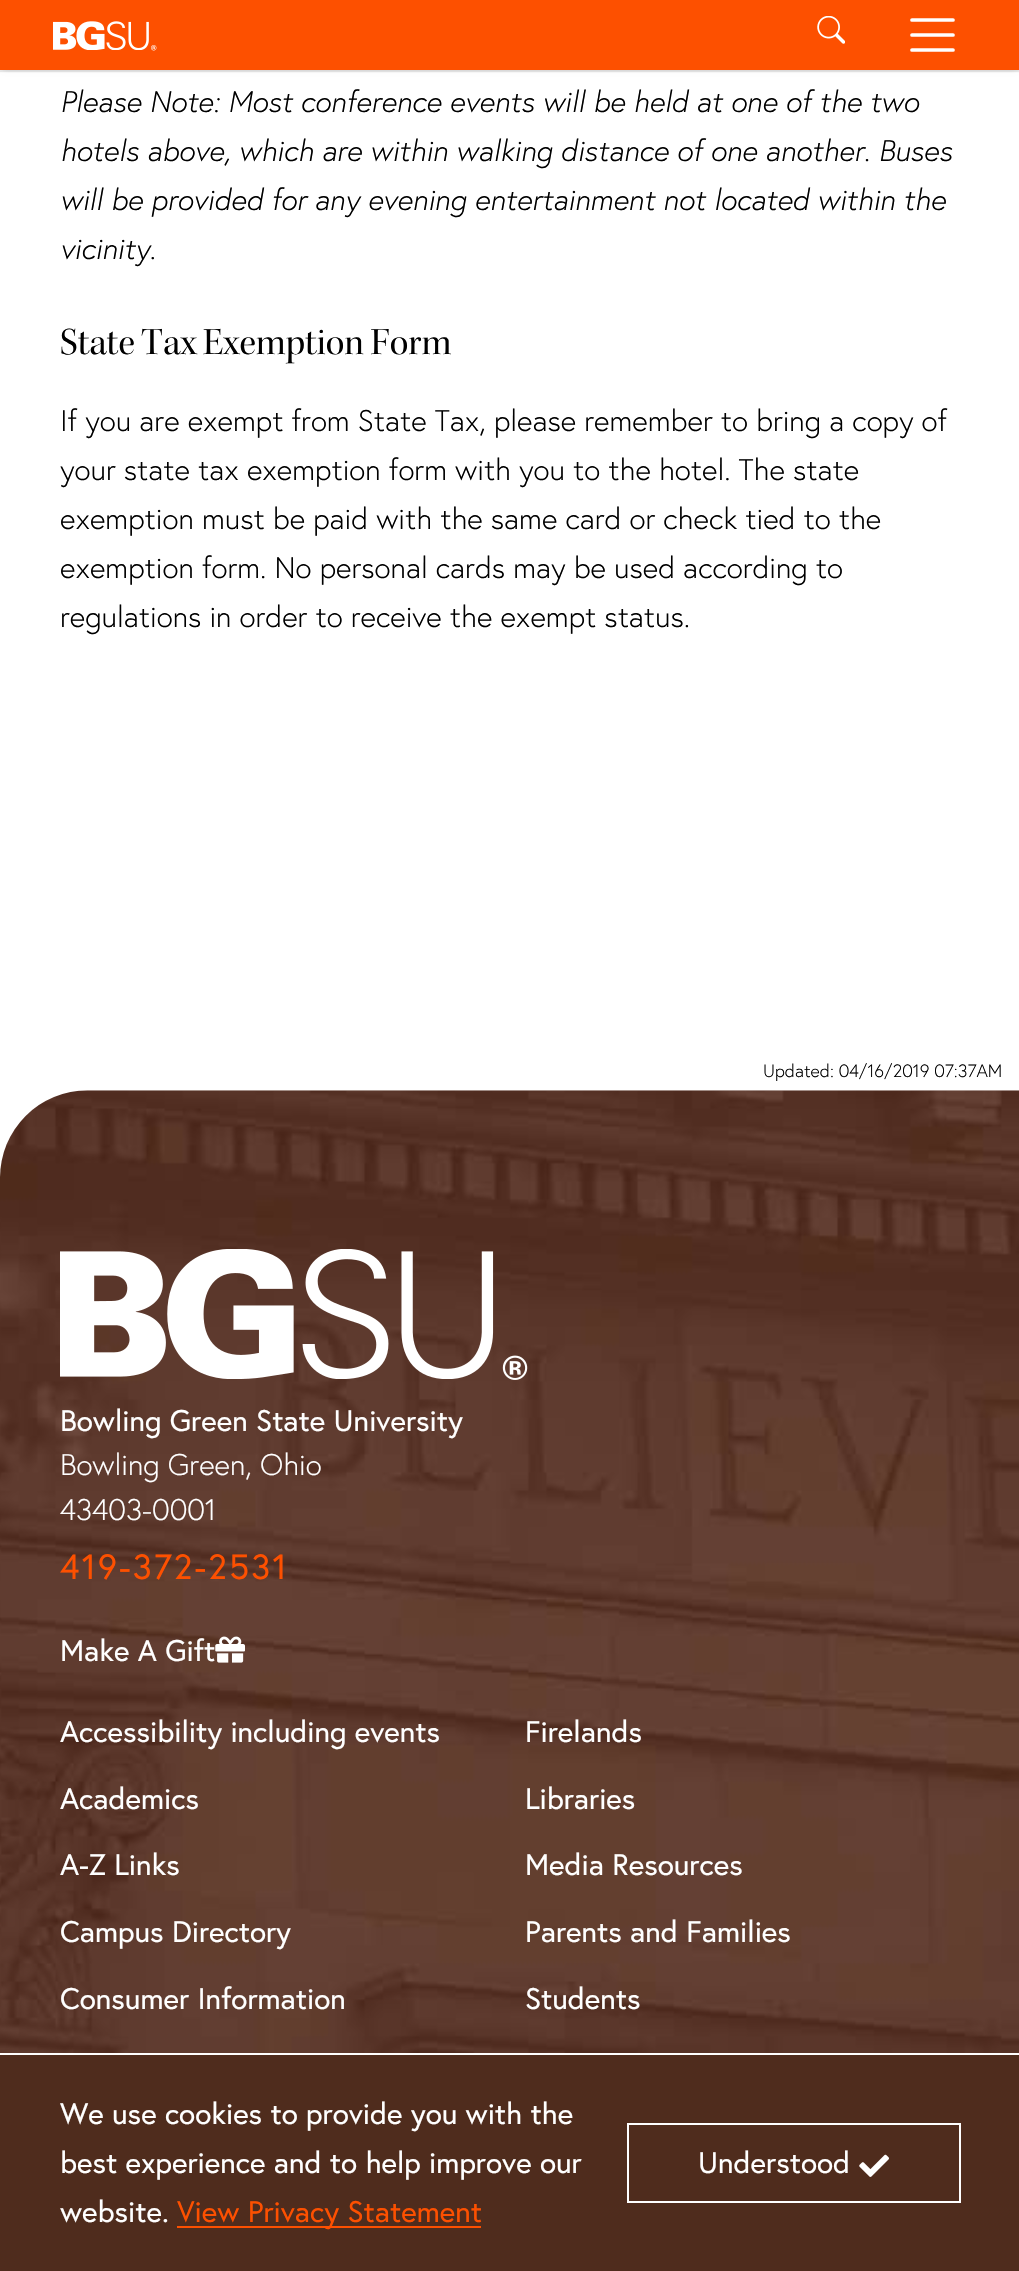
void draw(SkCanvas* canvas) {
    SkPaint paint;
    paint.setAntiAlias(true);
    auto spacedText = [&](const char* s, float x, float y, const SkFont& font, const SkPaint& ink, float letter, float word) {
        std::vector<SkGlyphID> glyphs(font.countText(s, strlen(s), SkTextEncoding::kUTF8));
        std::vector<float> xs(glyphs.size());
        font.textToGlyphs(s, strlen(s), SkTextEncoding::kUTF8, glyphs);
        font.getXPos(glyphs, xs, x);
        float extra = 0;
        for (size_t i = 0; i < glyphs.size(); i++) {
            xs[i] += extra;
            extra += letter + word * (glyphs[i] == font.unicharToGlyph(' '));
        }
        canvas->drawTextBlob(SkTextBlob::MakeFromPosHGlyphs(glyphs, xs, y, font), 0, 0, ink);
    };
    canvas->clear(0xFFFFFFFF);
    paint.setColor(0x14000000);
    paint.setMaskFilter(SkMaskFilter::MakeBlur(kNormal_SkBlurStyle, 2.5f));
    canvas->drawRect(SkRect::MakeXYWH(5, 9, 1010, 61), paint);
    paint.setMaskFilter(nullptr);
    paint.setMaskFilter(SkMaskFilter::MakeBlur(kNormal_SkBlurStyle, 1));
    canvas->drawRect(SkRect::MakeXYWH(2, 5, 1017, 65), paint);
    paint.setMaskFilter(nullptr);
    paint.setColor(0x17000000);
    paint.setMaskFilter(SkMaskFilter::MakeBlur(kNormal_SkBlurStyle, 0.5f));
    canvas->drawRect(SkRect::MakeXYWH(0, 2, 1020, 70), paint);
    paint.setMaskFilter(nullptr);
    paint.setColor(0xFFFD5000);
    canvas->drawRect(SkRect::MakeXYWH(0, 0, 1019, 70), paint);
    canvas->drawImageRect(SkImages::DeferredFromEncodedData(SkData::MakeFromFileName("img1.png")), SkRect::MakeXYWH(53, 21, 104, 30), SkSamplingOptions());
    canvas->drawImageRect(SkImages::DeferredFromEncodedData(SkData::MakeFromFileName("img2.png")), SkRect::MakeXYWH(817, 16, 28, 28), SkSamplingOptions());
    paint.setStyle(SkPaint::kStroke_Style);
    paint.setStrokeWidth(3.7f);
    paint.setStrokeCap(SkPaint::kRound_Cap);
    paint.setColor(0xFFFFFFFF);
    canvas->drawPath(SkPathBuilder().moveTo(912, 20).lineTo(953, 20).moveTo(912, 35).lineTo(953, 35).moveTo(912, 50).lineTo(953, 50).detach(), paint);
    SkFont font1(fontMgr->matchFamilyStyle("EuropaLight", SkFontStyle(300, SkFontStyle::kNormal_Width, SkFontStyle::kItalic_Slant)), 29.75f);
    font1.setSubpixel(true);
    paint.setStyle(SkPaint::kFill_Style);
    paint.setColor(0xFF000000);
    canvas->drawString("Please Note: Most conference events will be held at one of the two", 60, 112, font1, paint);
    canvas->drawString("hotels above, which are within walking distance of one another. Buses", 60, 161, font1, paint);
    canvas->drawString("will be provided for any evening entertainment not located within the", 60, 210, font1, paint);
    canvas->drawString("vicinity.", 60, 259, font1, paint);
    SkFont font2(fontMgr->matchFamilyStyle("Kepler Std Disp", SkFontStyle::Normal()), 38.75f);
    font2.setSubpixel(true);
    canvas->drawString("State Tax Exemption Form", 60, 354, font2, paint);
    SkFont font3(fontMgr->matchFamilyStyle("EuropaLight", SkFontStyle(300, SkFontStyle::kNormal_Width, SkFontStyle::kUpright_Slant)), 29.75f);
    font3.setSubpixel(true);
    canvas->drawString("If you are exempt from State Tax, please remember to bring a copy of", 60, 431, font3, paint);
    canvas->drawString("your state tax exemption form with you to the hotel. The state", 60, 480, font3, paint);
    canvas->drawString("exemption must be paid with the same card or check tied to the", 60, 529, font3, paint);
    canvas->drawString("exemption form. No personal cards may be used according to", 60, 578, font3, paint);
    canvas->drawString("regulations in order to receive the exempt status.", 60, 627, font3, paint);
    SkFont font4(fontMgr->matchFamilyStyle("EuropaLight", SkFontStyle(300, SkFontStyle::kNormal_Width, SkFontStyle::kUpright_Slant)), 17.8f);
    font4.setSubpixel(true);
    canvas->drawString("Updated: 04/16/2019 07:37AM", 763, 1077, font4, paint);
    canvas->drawImageRect(SkImages::DeferredFromEncodedData(SkData::MakeFromFileName("img3.png")), SkRect::MakeXYWH(0, 1090, 1019, 963), SkSamplingOptions());
    canvas->drawImageRect(SkImages::DeferredFromEncodedData(SkData::MakeFromFileName("img4.png")), SkRect::MakeXYWH(60, 1249, 468, 131), SkSamplingOptions());
    SkFont font5(fontMgr->matchFamilyStyle("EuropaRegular", SkFontStyle::Normal()), 29.75f);
    font5.setSubpixel(true);
    paint.setColor(0xFFFFFFFF);
    canvas->drawString("Bowling Green State University", 60, 1431, font5, paint);
    canvas->drawString("Bowling Green, Ohio", 60, 1475, font3, paint);
    canvas->drawString("43403-0001", 60, 1520, font3, paint);
    SkFont font6(fontMgr->matchFamilyStyle("EuropaRegular", SkFontStyle::Normal()), 35);
    font6.setSubpixel(true);
    paint.setColor(0xFFFD5000);
    spacedText("419-372-2531", 60, 1579, font6, paint, 2.1f, 0);
    paint.setColor(0xFFFFFFFF);
    canvas->drawString("Make A Gift", 60, 1661, font5, paint);
    canvas->drawImageRect(SkImages::DeferredFromEncodedData(SkData::MakeFromFileName("img5.png")), SkRect::MakeXYWH(215, 1636, 30, 27), SkSamplingOptions());
    canvas->drawString("Accessibility including events", 60, 1742, font5, paint);
    canvas->drawString("Firelands", 525, 1742, font5, paint);
    canvas->drawString("Academics", 60, 1809, font5, paint);
    canvas->drawString("Libraries", 525, 1809, font5, paint);
    canvas->drawString("A-Z Links", 60, 1875, font5, paint);
    canvas->drawString("Media Resources", 525, 1875, font5, paint);
    canvas->drawString("Campus Directory", 60, 1942, font5, paint);
    canvas->drawString("Parents and Families", 525, 1942, font5, paint);
    canvas->drawString("Consumer Information", 60, 2009, font5, paint);
    canvas->drawString("Students", 525, 2009, font5, paint);
    paint.setColor(0xFF4F2C1D);
    canvas->drawRect(SkRect::MakeXYWH(0, 2055, 1019, 216), paint);
    paint.setColor(0xFFFFFFFF);
    canvas->drawString("We use cookies to provide you with the", 60, 2124, font5, paint);
    canvas->drawString("best experience and to help improve our", 60, 2173, font5, paint);
    canvas->drawString("website.", 60, 2222, font5, paint);
    paint.setColor(0xFFFD5000);
    canvas->drawRect(SkRect::MakeXYWH(177, 2226, 304, 2), paint);
    canvas->drawString("View Privacy Statement", 177, 2222, font5, paint);
    paint.setStyle(SkPaint::kStroke_Style);
    paint.setStrokeWidth(2);
    paint.setStrokeCap(SkPaint::kButt_Cap);
    paint.setColor(0xFFFFFFFF);
    canvas->drawRect(SkRect::MakeXYWH(628, 2124, 332, 78), paint);
    paint.setStyle(SkPaint::kFill_Style);
    canvas->drawString("Understood", 698, 2173, font5, paint);
    canvas->drawImageRect(SkImages::DeferredFromEncodedData(SkData::MakeFromFileName("img6.png")), SkRect::MakeXYWH(859, 2154, 30, 23), SkSamplingOptions());
}
